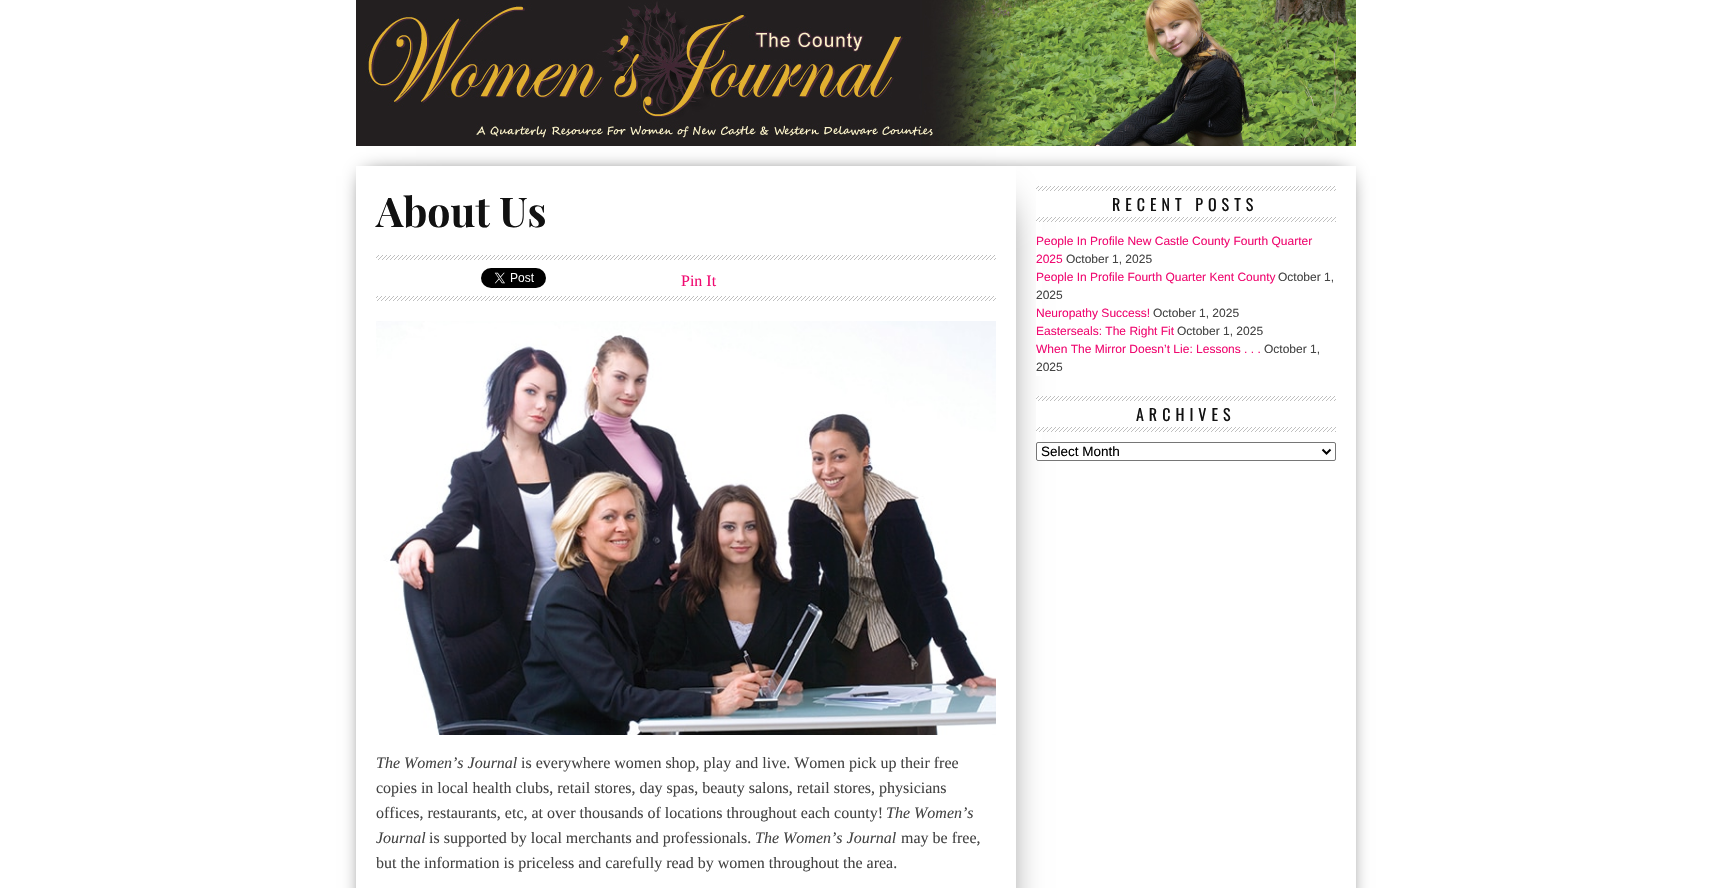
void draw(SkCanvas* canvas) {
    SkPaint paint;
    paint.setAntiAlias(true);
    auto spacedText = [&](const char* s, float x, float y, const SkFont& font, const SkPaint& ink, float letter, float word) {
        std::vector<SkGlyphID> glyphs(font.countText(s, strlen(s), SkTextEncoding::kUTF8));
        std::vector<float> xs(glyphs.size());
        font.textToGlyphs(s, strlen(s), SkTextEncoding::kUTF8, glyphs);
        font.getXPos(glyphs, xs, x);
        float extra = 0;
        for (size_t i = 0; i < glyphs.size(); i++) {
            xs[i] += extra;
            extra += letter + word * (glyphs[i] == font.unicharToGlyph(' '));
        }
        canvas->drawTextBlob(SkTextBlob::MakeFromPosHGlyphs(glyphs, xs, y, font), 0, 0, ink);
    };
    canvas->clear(0xFFFFFFFF);
    canvas->drawImageRect(SkImages::DeferredFromEncodedData(SkData::MakeFromFileName("img1.png")), SkRect::MakeXYWH(356, 0, 1000, 146), SkSamplingOptions());
    canvas->save();
    canvas->clipPath(SkPathBuilder(SkPathFillType::kEvenOdd).moveTo(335, 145).lineTo(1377, 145).lineTo(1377, 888).lineTo(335, 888).close().moveTo(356, 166).lineTo(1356, 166).lineTo(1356, 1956).lineTo(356, 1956).close().detach(), true);
    paint.setColor(0xFF000000);
    paint.setMaskFilter(SkMaskFilter::MakeBlur(kNormal_SkBlurStyle, 10));
    canvas->drawRect(SkRect::MakeXYWH(366, 176, 980, 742), paint);
    paint.setMaskFilter(nullptr);
    canvas->restore();
    canvas->save();
    canvas->clipPath(SkPathBuilder(SkPathFillType::kEvenOdd).moveTo(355, 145).lineTo(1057, 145).lineTo(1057, 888).lineTo(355, 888).close().moveTo(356, 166).lineTo(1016, 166).lineTo(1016, 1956).lineTo(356, 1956).close().detach(), true);
    paint.setMaskFilter(SkMaskFilter::MakeBlur(kNormal_SkBlurStyle, 20));
    canvas->drawRect(SkRect::MakeXYWH(416, 206, 580, 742), paint);
    paint.setMaskFilter(nullptr);
    canvas->restore();
    SkFont font1(fontMgr->matchFamilyStyle("Playfair Display", SkFontStyle::Bold()), 41);
    font1.setSubpixel(true);
    paint.setColor(0xFF111111);
    canvas->drawString("About Us", 376, 227, font1, paint);
    canvas->drawImageRect(SkImages::DeferredFromEncodedData(SkData::MakeFromFileName("img2.png")), SkRect::MakeXYWH(376, 255, 620, 46), SkSamplingOptions());
    paint.setColor(0xFFFFFFFF);
    canvas->drawRect(SkRect::MakeXYWH(376, 260, 620, 36), paint);
    canvas->drawImageRect(SkImages::DeferredFromEncodedData(SkData::MakeFromFileName("img3.png")), SkRect::MakeXYWH(481, 268, 65, 20), SkSamplingOptions());
    SkFont font2(fontMgr->matchFamilyStyle("Liberation Serif", SkFontStyle::Normal()), 16);
    font2.setSubpixel(true);
    paint.setColor(0xFFF00A71);
    canvas->drawString("Pin It", 681, 286, font2, paint);
    canvas->drawImageRect(SkImages::DeferredFromEncodedData(SkData::MakeFromFileName("img4.png")), SkRect::MakeXYWH(376, 321, 620, 414), SkSamplingOptions());
    SkFont font3(fontMgr->matchFamilyStyle("Liberation Serif", SkFontStyle::Italic()), 16);
    font3.setSubpixel(true);
    paint.setColor(0xFF444444);
    canvas->drawString("The Women’s Journal", 376, 768, font3, paint);
    canvas->drawString("is everywhere women shop, play and live. Women pick up their free", 521, 768, font2, paint);
    canvas->drawString("copies in local health clubs, retail stores, day spas, beauty salons, retail stores, physicians", 376, 793, font2, paint);
    canvas->drawString("offices, restaurants, etc, at over thousands of locations throughout each county!", 376, 818, font2, paint);
    canvas->drawString("The Women’s", 886, 818, font3, paint);
    canvas->drawString("Journal", 376, 843, font3, paint);
    canvas->drawString("is supported by local merchants and professionals.", 429, 843, font2, paint);
    canvas->drawString("The Women’s Journal", 755, 843, font3, paint);
    canvas->drawString("may be free,", 901, 843, font2, paint);
    canvas->drawString("but the information is priceless and carefully read by women throughout the area.", 376, 868, font2, paint);
    paint.setColor(0xFFFFFFFF);
    canvas->drawRect(SkRect::MakeXYWH(1036, 204, 6, 172), paint);
    canvas->drawImageRect(SkImages::DeferredFromEncodedData(SkData::MakeFromFileName("img5.png")), SkRect::MakeXYWH(1036, 186, 300, 36), SkSamplingOptions());
    canvas->drawRect(SkRect::MakeXYWH(1036, 191, 300, 26), paint);
    SkFont font4(fontMgr->matchFamilyStyle("Oswald", SkFontStyle::Normal()), 16);
    font4.setSubpixel(true);
    paint.setColor(0xFF111111);
    spacedText("RECENT POSTS", 1112, 211, font4, paint, 5, 0);
    SkFont font5(fontMgr->matchFamilyStyle("Liberation Sans", SkFontStyle::Normal()), 12);
    font5.setSubpixel(true);
    paint.setColor(0xFFF00A71);
    canvas->drawString("People In Profile New Castle County Fourth Quarter", 1036, 245, font5, paint);
    canvas->drawString("2025", 1036, 263, font5, paint);
    paint.setColor(0xFF444444);
    canvas->drawString("October 1, 2025", 1066, 263, font5, paint);
    paint.setColor(0xFFF00A71);
    canvas->drawString("People In Profile Fourth Quarter Kent County", 1036, 281, font5, paint);
    paint.setColor(0xFF444444);
    canvas->drawString("October 1,", 1278, 281, font5, paint);
    canvas->drawString("2025", 1036, 299, font5, paint);
    paint.setColor(0xFFF00A71);
    canvas->drawString("Neuropathy Success!", 1036, 317, font5, paint);
    paint.setColor(0xFF444444);
    canvas->drawString("October 1, 2025", 1153, 317, font5, paint);
    paint.setColor(0xFFF00A71);
    canvas->drawString("Easterseals: The Right Fit", 1036, 335, font5, paint);
    paint.setColor(0xFF444444);
    canvas->drawString("October 1, 2025", 1177, 335, font5, paint);
    paint.setColor(0xFFF00A71);
    canvas->drawString("When The Mirror Doesn’t Lie: Lessons . . .", 1036, 353, font5, paint);
    paint.setColor(0xFF444444);
    canvas->drawString("October 1,", 1264, 353, font5, paint);
    canvas->drawString("2025", 1036, 371, font5, paint);
    paint.setColor(0xFFFFFFFF);
    canvas->drawRect(SkRect::MakeXYWH(1036, 396, 6, 65), paint);
    canvas->drawImageRect(SkImages::DeferredFromEncodedData(SkData::MakeFromFileName("img5.png")), SkRect::MakeXYWH(1036, 396, 300, 36), SkSamplingOptions());
    canvas->drawRect(SkRect::MakeXYWH(1036, 401, 300, 26), paint);
    paint.setColor(0xFF111111);
    spacedText("ARCHIVES", 1136, 421, font4, paint, 5, 0);
    paint.setStyle(SkPaint::kStroke_Style);
    paint.setStrokeWidth(1);
    paint.setColor(0xFF767676);
    canvas->drawRoundRect(SkRect::MakeXYWH(1036.5f, 442.5f, 299, 18), 1.5f, 1.5f, paint);
    paint.setStrokeWidth(2);
    paint.setColor(0xFF000000);
    canvas->drawPath(SkPathBuilder().moveTo(1322.5f, 449.5f).lineTo(1326.5f, 453.5f).lineTo(1330.5f, 449.5f).detach(), paint);
    SkFont font6(fontMgr->matchFamilyStyle("Liberation Sans", SkFontStyle::Normal()), 13.5f);
    font6.setSubpixel(true);
    paint.setStyle(SkPaint::kFill_Style);
    canvas->drawString("Select Month", 1041, 456, font6, paint);
}
